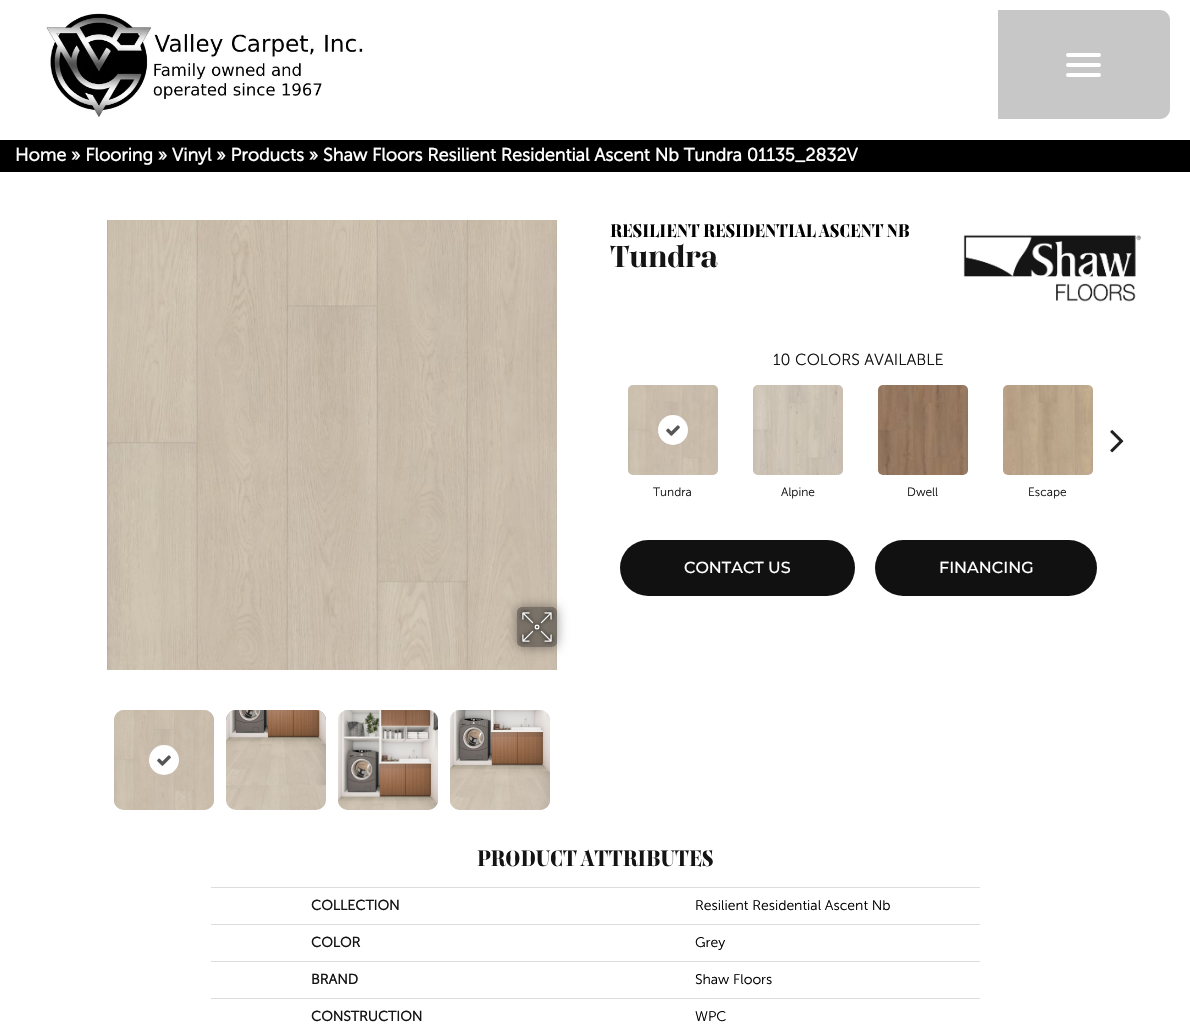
void draw(SkCanvas* canvas) {
    SkPaint paint;
    paint.setAntiAlias(true);
    canvas->clear(0xFFFFFFFF);
    canvas->drawImageRect(SkImages::DeferredFromEncodedData(SkData::MakeFromFileName("img1.png")), SkRect::MakeXYWH(46, 13, 317, 104), SkSamplingOptions());
    paint.setColor(0xFFC7C7C7);
    canvas->drawPath(SkPathBuilder().moveTo(998, 10).lineTo(1160, 10).cubicTo(1165.5f, 10, 1170, 14.5f, 1170, 20).lineTo(1170, 109).cubicTo(1170, 114.5f, 1165.5f, 119, 1160, 119).lineTo(998, 119).close().detach(), paint);
    paint.setColor(0xFFFFFFFF);
    canvas->drawRoundRect(SkRect::MakeXYWH(1066, 63, 35, 4), 2, 2, paint);
    canvas->drawRoundRect(SkRect::MakeXYWH(1066, 53, 35, 4), 2, 2, paint);
    canvas->drawRoundRect(SkRect::MakeXYWH(1066, 73, 35, 4), 2, 2, paint);
    paint.setColor(0xFF000000);
    canvas->drawRect(SkRect::MakeXYWH(0, 140, 1190, 32), paint);
    SkFont font1(fontMgr->matchFamilyStyle("Museo Sans", SkFontStyle::Bold()), 18);
    font1.setSubpixel(true);
    paint.setColor(0xFFFFFFFF);
    canvas->drawString("Home » Flooring » Vinyl » Products » Shaw Floors Resilient Residential Ascent Nb Tundra 01135_2832V", 15, 161, font1, paint);
    canvas->drawImageRect(SkImages::DeferredFromEncodedData(SkData::MakeFromFileName("img2.png")), SkRect::MakeXYWH(107, 220, 450, 450), SkSamplingOptions());
    canvas->save();
    canvas->clipPath(SkPathBuilder(SkPathFillType::kEvenOdd).moveTo(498, 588).lineTo(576, 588).lineTo(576, 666).lineTo(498, 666).close().moveTo(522, 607).lineTo(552, 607).cubicTo(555, 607, 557, 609, 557, 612).lineTo(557, 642).cubicTo(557, 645, 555, 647, 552, 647).lineTo(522, 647).cubicTo(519, 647, 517, 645, 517, 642).lineTo(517, 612).cubicTo(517, 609, 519, 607, 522, 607).close().detach(), true);
    paint.setColor(0x69000000);
    paint.setMaskFilter(SkMaskFilter::MakeBlur(kNormal_SkBlurStyle, 6));
    canvas->drawRoundRect(SkRect::MakeXYWH(517, 607, 40, 40), 5, 5, paint);
    paint.setMaskFilter(nullptr);
    canvas->restore();
    paint.setColor(0x66000000);
    canvas->drawRoundRect(SkRect::MakeXYWH(517, 607, 40, 40), 5, 5, paint);
    canvas->drawImageRect(SkImages::DeferredFromEncodedData(SkData::MakeFromFileName("img3.png")), SkRect::MakeXYWH(519, 609, 36, 36), SkSamplingOptions());
    canvas->drawImageRect(SkImages::DeferredFromEncodedData(SkData::MakeFromFileName("img4.png")), SkRect::MakeXYWH(114, 710, 100, 100), SkSamplingOptions());
    canvas->drawImageRect(SkImages::DeferredFromEncodedData(SkData::MakeFromFileName("img5.png")), SkRect::MakeXYWH(114, 710, 100, 100), SkSamplingOptions());
    paint.setColor(0xFFFFFFFF);
    canvas->drawCircle(164, 760, 15, paint);
    canvas->drawImageRect(SkImages::DeferredFromEncodedData(SkData::MakeFromFileName("img6.png")), SkRect::MakeXYWH(157, 755, 14, 11), SkSamplingOptions());
    canvas->drawImageRect(SkImages::DeferredFromEncodedData(SkData::MakeFromFileName("img7.png")), SkRect::MakeXYWH(226, 710, 100, 100), SkSamplingOptions());
    canvas->drawImageRect(SkImages::DeferredFromEncodedData(SkData::MakeFromFileName("img8.png")), SkRect::MakeXYWH(226, 710, 100, 75), SkSamplingOptions());
    canvas->drawImageRect(SkImages::DeferredFromEncodedData(SkData::MakeFromFileName("img9.png")), SkRect::MakeXYWH(338, 710, 100, 100), SkSamplingOptions());
    canvas->drawImageRect(SkImages::DeferredFromEncodedData(SkData::MakeFromFileName("img10.png")), SkRect::MakeXYWH(338, 710, 100, 100), SkSamplingOptions());
    canvas->drawImageRect(SkImages::DeferredFromEncodedData(SkData::MakeFromFileName("img11.png")), SkRect::MakeXYWH(450, 710, 100, 100), SkSamplingOptions());
    canvas->drawImageRect(SkImages::DeferredFromEncodedData(SkData::MakeFromFileName("img12.png")), SkRect::MakeXYWH(450, 710, 100, 100), SkSamplingOptions());
    SkFont font2(fontMgr->matchFamilyStyle("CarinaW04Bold", SkFontStyle::Bold()), 18);
    font2.setSubpixel(true);
    paint.setColor(0xFF000000);
    canvas->drawString("RESILIENT RESIDENTIAL ASCENT NB", 610, 237, font2, paint);
    SkFont font3(fontMgr->matchFamilyStyle("CarinaW04Bold", SkFontStyle::Bold()), 30);
    font3.setSubpixel(true);
    paint.setColor(0xFF141414);
    canvas->drawString("Tundra", 610, 267, font3, paint);
    canvas->drawImageRect(SkImages::DeferredFromEncodedData(SkData::MakeFromFileName("img13.png")), SkRect::MakeXYWH(963, 234, 178, 68), SkSamplingOptions());
    SkFont font4(fontMgr->matchFamilyStyle("Museo Sans", SkFontStyle(300, SkFontStyle::kNormal_Width, SkFontStyle::kUpright_Slant)), 16);
    font4.setSubpixel(true);
    canvas->drawString("10", 773, 365, font4, paint);
    canvas->drawString("COLORS AVAILABLE", 795, 365, font4, paint);
    canvas->drawImageRect(SkImages::DeferredFromEncodedData(SkData::MakeFromFileName("img14.png")), SkRect::MakeXYWH(1110, 430, 14, 23), SkSamplingOptions());
    canvas->drawImageRect(SkImages::DeferredFromEncodedData(SkData::MakeFromFileName("img15.png")), SkRect::MakeXYWH(628, 385, 90, 90), SkSamplingOptions());
    paint.setColor(0xFFFFFFFF);
    canvas->drawCircle(673, 430, 15, paint);
    canvas->drawImageRect(SkImages::DeferredFromEncodedData(SkData::MakeFromFileName("img6.png")), SkRect::MakeXYWH(666, 425, 14, 11), SkSamplingOptions());
    SkFont font5(fontMgr->matchFamilyStyle("Museo Sans", SkFontStyle(300, SkFontStyle::kNormal_Width, SkFontStyle::kUpright_Slant)), 12);
    font5.setSubpixel(true);
    paint.setColor(0xFF141414);
    canvas->drawString("Tundra", 653, 496, font5, paint);
    canvas->drawImageRect(SkImages::DeferredFromEncodedData(SkData::MakeFromFileName("img16.png")), SkRect::MakeXYWH(753, 385, 90, 90), SkSamplingOptions());
    canvas->drawString("Alpine", 781, 496, font5, paint);
    canvas->drawImageRect(SkImages::DeferredFromEncodedData(SkData::MakeFromFileName("img17.png")), SkRect::MakeXYWH(878, 385, 90, 90), SkSamplingOptions());
    canvas->drawString("Dwell", 907, 496, font5, paint);
    canvas->drawImageRect(SkImages::DeferredFromEncodedData(SkData::MakeFromFileName("img18.png")), SkRect::MakeXYWH(1003, 385, 90, 90), SkSamplingOptions());
    canvas->drawString("Escape", 1028, 496, font5, paint);
    paint.setColor(0xFF111111);
    canvas->drawRoundRect(SkRect::MakeXYWH(620, 540, 235, 56), 28, 28, paint);
    SkFont font6(fontMgr->matchFamilyStyle("Montserrat", SkFontStyle(500, SkFontStyle::kNormal_Width, SkFontStyle::kUpright_Slant)), 16);
    font6.setSubpixel(true);
    paint.setColor(0xFFFFFFFF);
    canvas->drawString("CONTACT US", 684, 573, font6, paint);
    paint.setColor(0xFF111111);
    canvas->drawRoundRect(SkRect::MakeXYWH(875, 540, 222, 56), 28, 28, paint);
    paint.setColor(0xFFFFFFFF);
    canvas->drawString("FINANCING", 939, 573, font6, paint);
    SkFont font7(fontMgr->matchFamilyStyle("CarinaW04Bold", SkFontStyle::Bold()), 22);
    font7.setSubpixel(true);
    paint.setColor(0xFF141414);
    canvas->drawString("PRODUCT ATTRIBUTES", 477, 866, font7, paint);
    SkFont font8(fontMgr->matchFamilyStyle("Museo Sans", SkFontStyle::Bold()), 14);
    font8.setSubpixel(true);
    canvas->drawString("COLLECTION", 311, 910, font8, paint);
    paint.setColor(0xFFDDDDDD);
    canvas->drawRect(SkRect::MakeXYWH(211, 887, 769, 1), paint);
    SkFont font9(fontMgr->matchFamilyStyle("Museo Sans", SkFontStyle(300, SkFontStyle::kNormal_Width, SkFontStyle::kUpright_Slant)), 14);
    font9.setSubpixel(true);
    paint.setColor(0xFF000000);
    canvas->drawString("Resilient Residential Ascent Nb", 695, 910, font9, paint);
    paint.setColor(0xFF141414);
    canvas->drawString("COLOR", 311, 947, font8, paint);
    paint.setColor(0xFFDDDDDD);
    canvas->drawRect(SkRect::MakeXYWH(211, 924, 769, 1), paint);
    paint.setColor(0xFF000000);
    canvas->drawString("Grey", 695, 947, font9, paint);
    paint.setColor(0xFF141414);
    canvas->drawString("BRAND", 311, 984, font8, paint);
    paint.setColor(0xFFDDDDDD);
    canvas->drawRect(SkRect::MakeXYWH(211, 961, 769, 1), paint);
    paint.setColor(0xFF000000);
    canvas->drawString("Shaw Floors", 695, 984, font9, paint);
    paint.setColor(0xFF141414);
    canvas->drawString("CONSTRUCTION", 311, 1021, font8, paint);
    paint.setColor(0xFFDDDDDD);
    canvas->drawRect(SkRect::MakeXYWH(211, 998, 769, 1), paint);
    paint.setColor(0xFF000000);
    canvas->drawString("WPC", 695, 1021, font9, paint);
}
